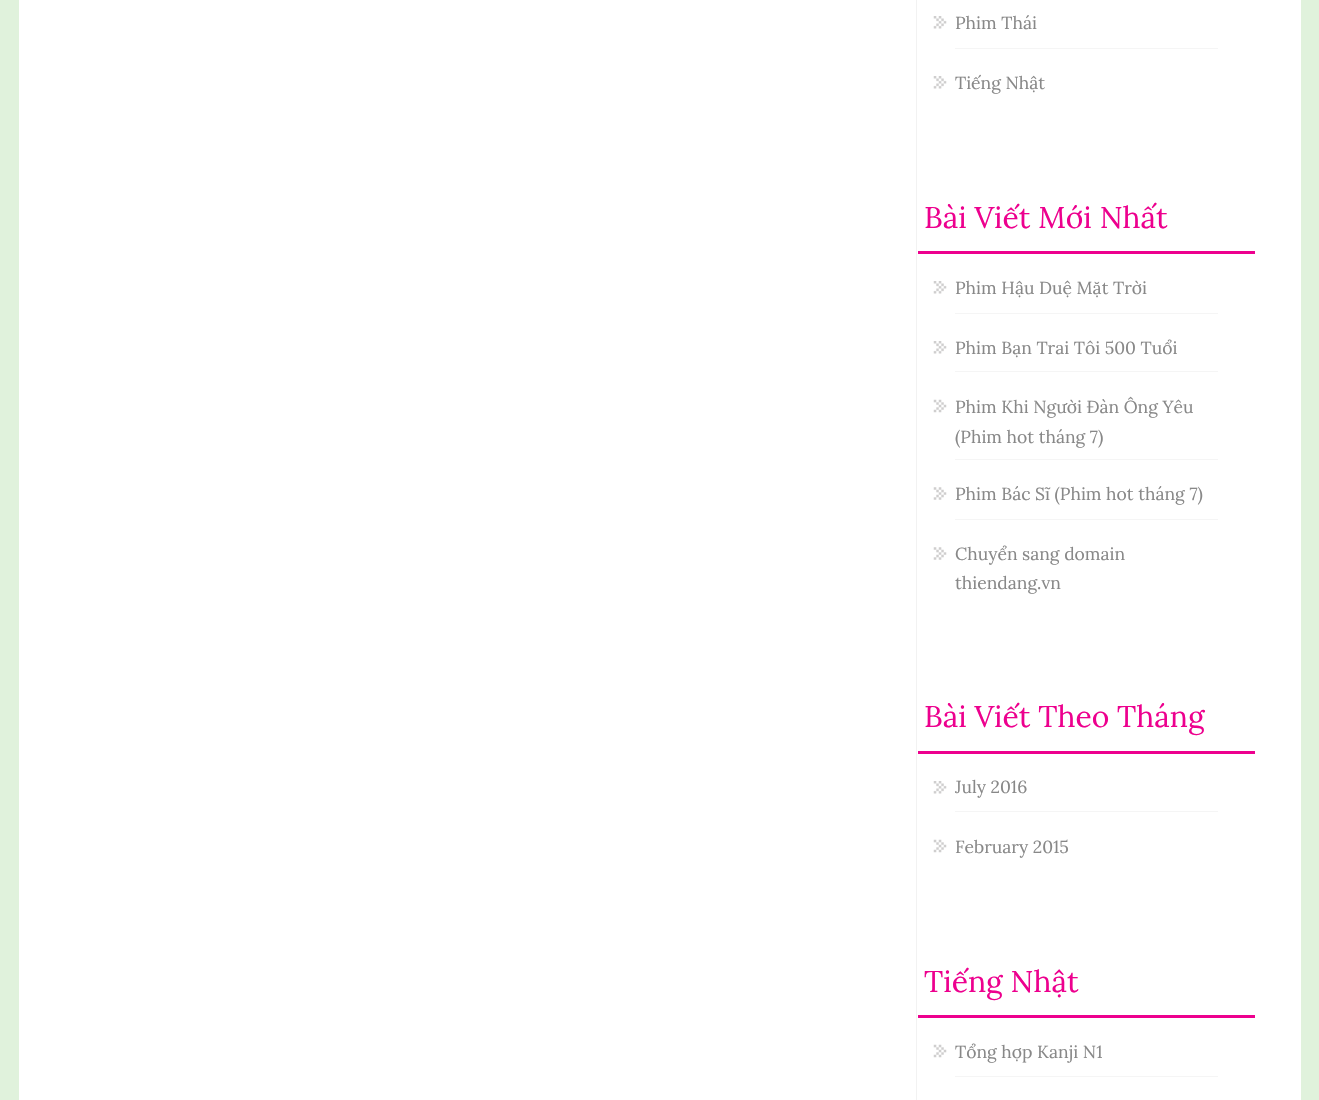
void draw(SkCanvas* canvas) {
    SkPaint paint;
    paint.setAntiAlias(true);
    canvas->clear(0xFFE0F2DC);
    paint.setColor(0xFFFFFFFF);
    canvas->drawRect(SkRect::MakeXYWH(19, 0, 1282, 1100), paint);
    paint.setColor(0xFFF2F2F2);
    canvas->drawRect(SkRect::MakeXYWH(916, 0, 1, 1100), paint);
    paint.setColor(0xFFF5F5F5);
    canvas->drawRect(SkRect::MakeXYWH(955, 48, 263, 1), paint);
    canvas->drawImageRect(SkImages::DeferredFromEncodedData(SkData::MakeFromFileName("img1.png")), SkRect::MakeXYWH(933, 16, 14, 13), SkSamplingOptions());
    SkFont font1(fontMgr->matchFamilyStyle("Lora", SkFontStyle::Normal()), 17.5f);
    font1.setSubpixel(true);
    paint.setColor(0xFF888888);
    canvas->drawString("Phim Thái", 955, 29, font1, paint);
    canvas->drawImageRect(SkImages::DeferredFromEncodedData(SkData::MakeFromFileName("img1.png")), SkRect::MakeXYWH(933, 76, 14, 13), SkSamplingOptions());
    canvas->drawString("Tiếng Nhật", 955, 89, font1, paint);
    paint.setColor(0xFFED008E);
    canvas->drawRect(SkRect::MakeXYWH(918, 251, 337, 3), paint);
    SkFont font2(fontMgr->matchFamilyStyle("Lora", SkFontStyle::Normal()), 30);
    font2.setSubpixel(true);
    canvas->drawString("Bài Viết Mới Nhất", 924, 228, font2, paint);
    paint.setColor(0xFFF5F5F5);
    canvas->drawRect(SkRect::MakeXYWH(955, 313, 263, 1), paint);
    canvas->drawImageRect(SkImages::DeferredFromEncodedData(SkData::MakeFromFileName("img1.png")), SkRect::MakeXYWH(933, 281, 14, 13), SkSamplingOptions());
    paint.setColor(0xFF888888);
    canvas->drawString("Phim Hậu Duệ Mặt Trời", 955, 294, font1, paint);
    paint.setColor(0xFFF5F5F5);
    canvas->drawRect(SkRect::MakeXYWH(955, 371, 263, 1), paint);
    canvas->drawImageRect(SkImages::DeferredFromEncodedData(SkData::MakeFromFileName("img1.png")), SkRect::MakeXYWH(933, 341, 14, 13), SkSamplingOptions());
    paint.setColor(0xFF888888);
    canvas->drawString("Phim Bạn Trai Tôi 500 Tuổi", 955, 354, font1, paint);
    paint.setColor(0xFFF5F5F5);
    canvas->drawRect(SkRect::MakeXYWH(955, 459, 263, 1), paint);
    canvas->drawImageRect(SkImages::DeferredFromEncodedData(SkData::MakeFromFileName("img2.png")), SkRect::MakeXYWH(933, 399, 14, 14), SkSamplingOptions());
    paint.setColor(0xFF888888);
    canvas->drawString("Phim Khi Người Đàn Ông Yêu", 955, 413, font1, paint);
    canvas->drawString("(Phim hot tháng 7)", 955, 443, font1, paint);
    paint.setColor(0xFFF5F5F5);
    canvas->drawRect(SkRect::MakeXYWH(955, 519, 263, 1), paint);
    canvas->drawImageRect(SkImages::DeferredFromEncodedData(SkData::MakeFromFileName("img3.png")), SkRect::MakeXYWH(933, 487, 14, 13), SkSamplingOptions());
    paint.setColor(0xFF888888);
    canvas->drawString("Phim Bác Sĩ (Phim hot tháng 7)", 955, 500, font1, paint);
    canvas->drawImageRect(SkImages::DeferredFromEncodedData(SkData::MakeFromFileName("img3.png")), SkRect::MakeXYWH(933, 547, 14, 13), SkSamplingOptions());
    canvas->drawString("Chuyển sang domain", 955, 560, font1, paint);
    canvas->drawString("thiendang.vn", 955, 589, font1, paint);
    paint.setColor(0xFFED008E);
    canvas->drawRect(SkRect::MakeXYWH(918, 751, 337, 3), paint);
    canvas->drawString("Bài Viết Theo Tháng", 924, 727, font2, paint);
    paint.setColor(0xFFF5F5F5);
    canvas->drawRect(SkRect::MakeXYWH(955, 811, 263, 1), paint);
    canvas->drawImageRect(SkImages::DeferredFromEncodedData(SkData::MakeFromFileName("img1.png")), SkRect::MakeXYWH(933, 781, 14, 13), SkSamplingOptions());
    paint.setColor(0xFF888888);
    canvas->drawString("July 2016", 955, 793, font1, paint);
    canvas->drawImageRect(SkImages::DeferredFromEncodedData(SkData::MakeFromFileName("img2.png")), SkRect::MakeXYWH(933, 839, 14, 14), SkSamplingOptions());
    canvas->drawString("February 2015", 955, 853, font1, paint);
    paint.setColor(0xFFED008E);
    canvas->drawRect(SkRect::MakeXYWH(918, 1015, 337, 3), paint);
    canvas->drawString("Tiếng Nhật", 924, 992, font2, paint);
    paint.setColor(0xFFF5F5F5);
    canvas->drawRect(SkRect::MakeXYWH(955, 1076, 263, 1), paint);
    canvas->drawImageRect(SkImages::DeferredFromEncodedData(SkData::MakeFromFileName("img2.png")), SkRect::MakeXYWH(933, 1044, 14, 14), SkSamplingOptions());
    paint.setColor(0xFF888888);
    canvas->drawString("Tổng hợp Kanji N1", 955, 1058, font1, paint);
}
